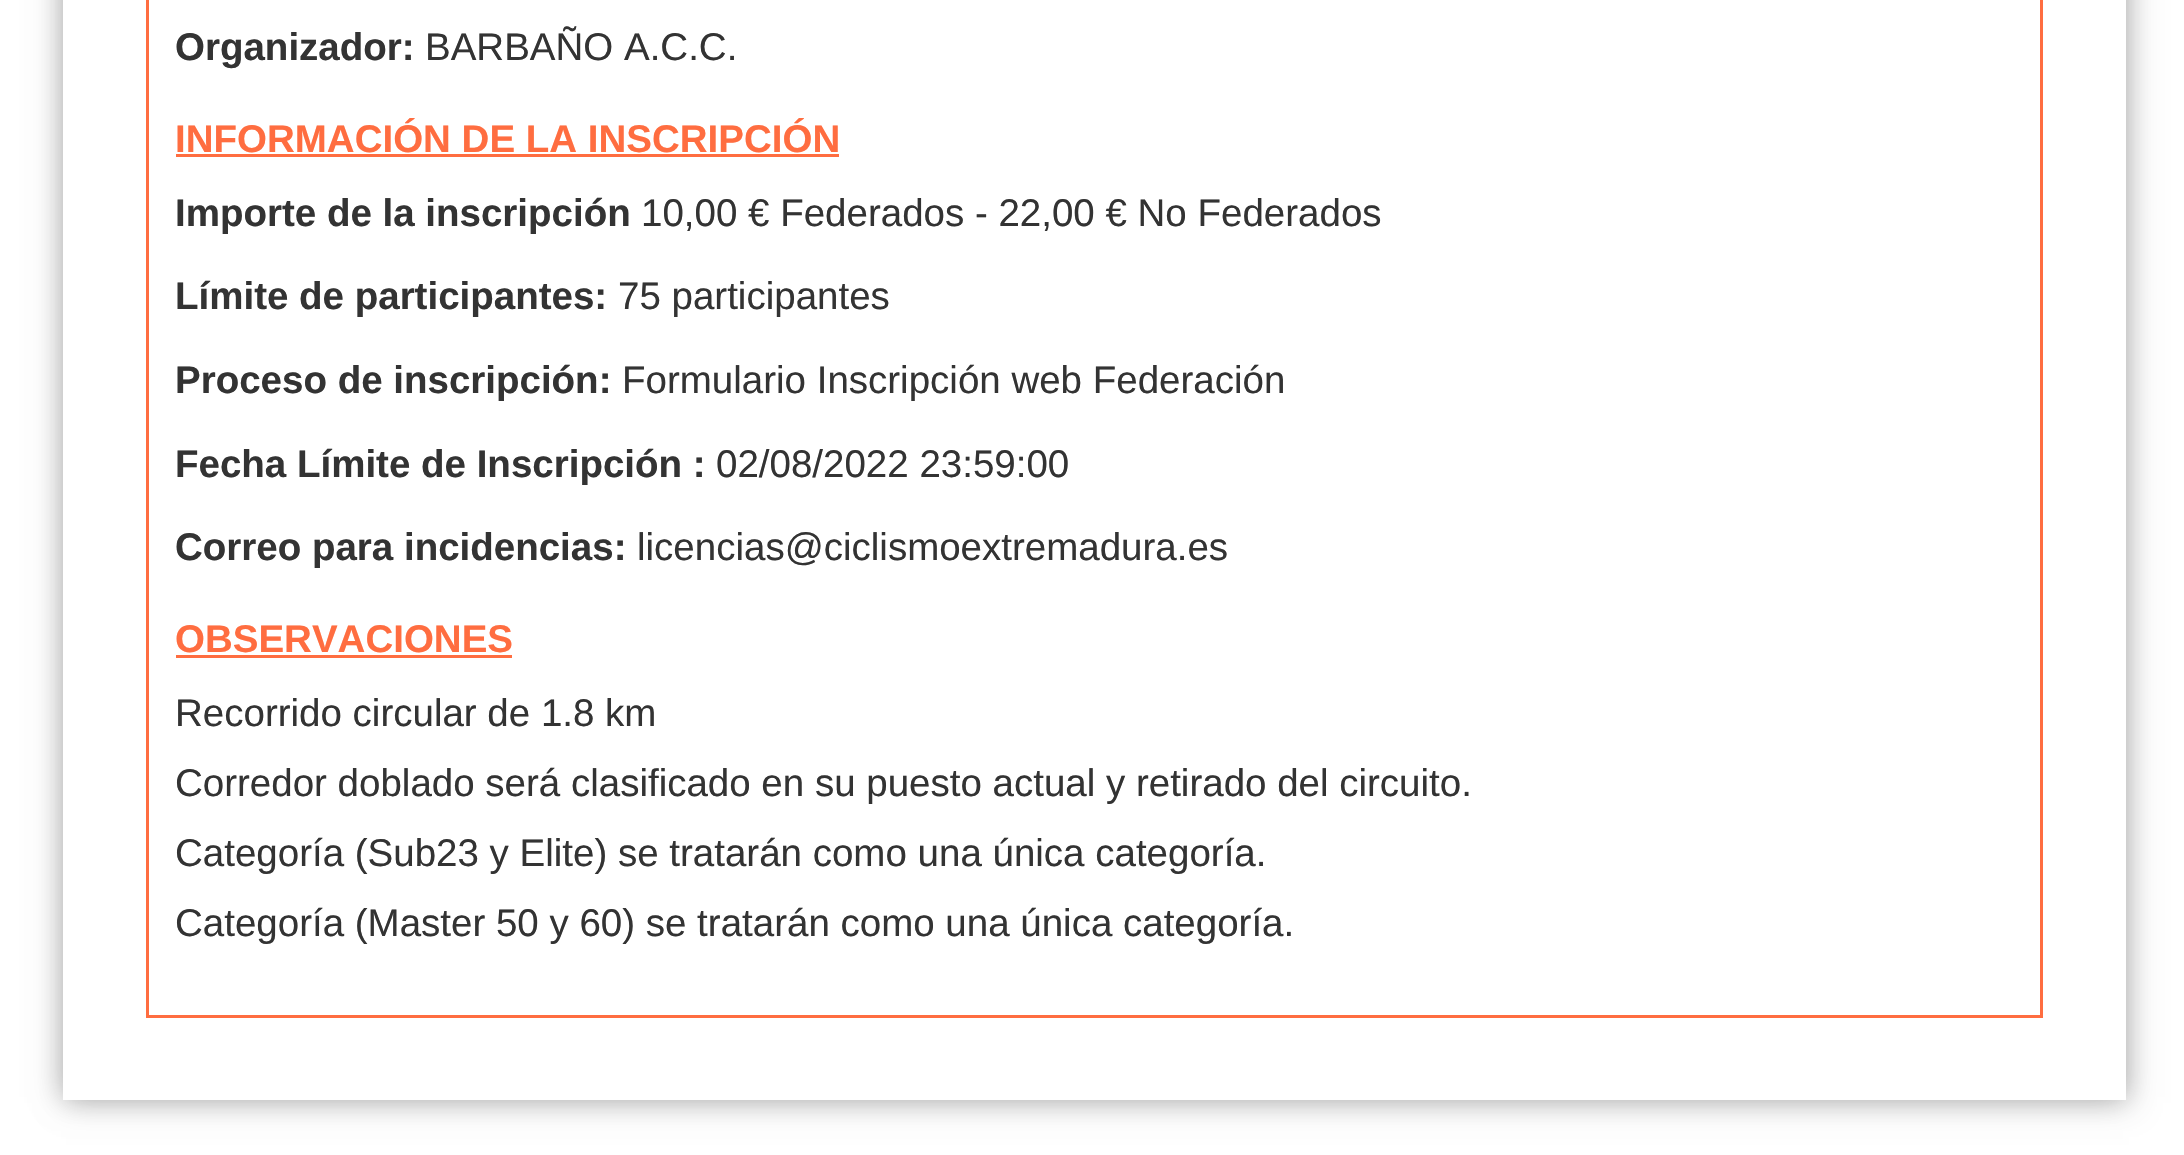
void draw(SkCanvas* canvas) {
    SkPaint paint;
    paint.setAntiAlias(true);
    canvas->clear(0xFFFFFFFF);
    canvas->save();
    canvas->clipPath(SkPathBuilder(SkPathFillType::kEvenOdd).moveTo(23, 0).lineTo(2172, 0).lineTo(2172, 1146).lineTo(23, 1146).close().moveTo(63, -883).lineTo(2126, -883).lineTo(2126, 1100).lineTo(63, 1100).close().detach(), true);
    paint.setColor(0x33000000);
    paint.setMaskFilter(SkMaskFilter::MakeBlur(kNormal_SkBlurStyle, 14));
    canvas->drawRect(SkRect::MakeXYWH(66, -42, 2063, 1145), paint);
    paint.setMaskFilter(nullptr);
    canvas->restore();
    canvas->save();
    canvas->clipPath(SkPathBuilder(SkPathFillType::kEvenOdd).moveTo(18, 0).lineTo(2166, 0).lineTo(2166, 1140).lineTo(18, 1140).close().moveTo(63, -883).lineTo(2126, -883).lineTo(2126, 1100).lineTo(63, 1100).close().detach(), true);
    paint.setMaskFilter(SkMaskFilter::MakeBlur(kNormal_SkBlurStyle, 14));
    canvas->drawRect(SkRect::MakeXYWH(61, -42, 2062, 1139), paint);
    paint.setMaskFilter(nullptr);
    canvas->restore();
    paint.setStyle(SkPaint::kStroke_Style);
    paint.setStrokeWidth(3);
    paint.setColor(0xFFFF6D40);
    canvas->drawRect(SkRect::MakeXYWH(147.5f, -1.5f, 1894, 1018), paint);
    SkFont font1(fontMgr->matchFamilyStyle("Liberation Sans", SkFontStyle::Bold()), 38.5f);
    font1.setSubpixel(true);
    paint.setStyle(SkPaint::kFill_Style);
    paint.setColor(0xFF333333);
    canvas->drawString("Organizador:", 175, 60, font1, paint);
    SkFont font2(fontMgr->matchFamilyStyle("Liberation Sans", SkFontStyle::Normal()), 38.5f);
    font2.setSubpixel(true);
    canvas->drawString("BARBAÑO A.C.C.", 425, 60, font2, paint);
    paint.setColor(0xFFFF6D40);
    canvas->drawString("INFORMACIÓN DE LA INSCRIPCIÓN", 175, 152, font1, paint);
    canvas->drawRect(SkRect::MakeXYWH(176, 154, 663, 3), paint);
    paint.setColor(0xFF333333);
    canvas->drawString("Importe de la inscripción", 175, 226, font1, paint);
    canvas->drawString("10,00 € Federados - 22,00 € No Federados", 641, 226, font2, paint);
    canvas->drawString("Límite de participantes:", 175, 309, font1, paint);
    canvas->drawString("75 participantes", 618, 309, font2, paint);
    canvas->drawString("Proceso de inscripción:", 175, 393, font1, paint);
    canvas->drawString("Formulario Inscripción web Federación", 622, 393, font2, paint);
    canvas->drawString("Fecha Límite de Inscripción :", 175, 477, font1, paint);
    canvas->drawString("02/08/2022 23:59:00", 716, 477, font2, paint);
    canvas->drawString("Correo para incidencias:", 175, 560, font1, paint);
    canvas->drawString("licencias@ciclismoextremadura.es", 637, 560, font2, paint);
    paint.setColor(0xFFFF6D40);
    canvas->drawString("OBSERVACIONES", 175, 652, font1, paint);
    canvas->drawRect(SkRect::MakeXYWH(176, 655, 336, 3), paint);
    paint.setColor(0xFF333333);
    canvas->drawString("Recorrido circular de 1.8 km", 175, 726, font2, paint);
    canvas->drawString("Corredor doblado será clasificado en su puesto actual y retirado del circuito.", 175, 796, font2, paint);
    canvas->drawString("Categoría (Sub23 y Elite) se tratarán como una única categoría.", 175, 866, font2, paint);
    canvas->drawString("Categoría (Master 50 y 60) se tratarán como una única categoría.", 175, 936, font2, paint);
}
